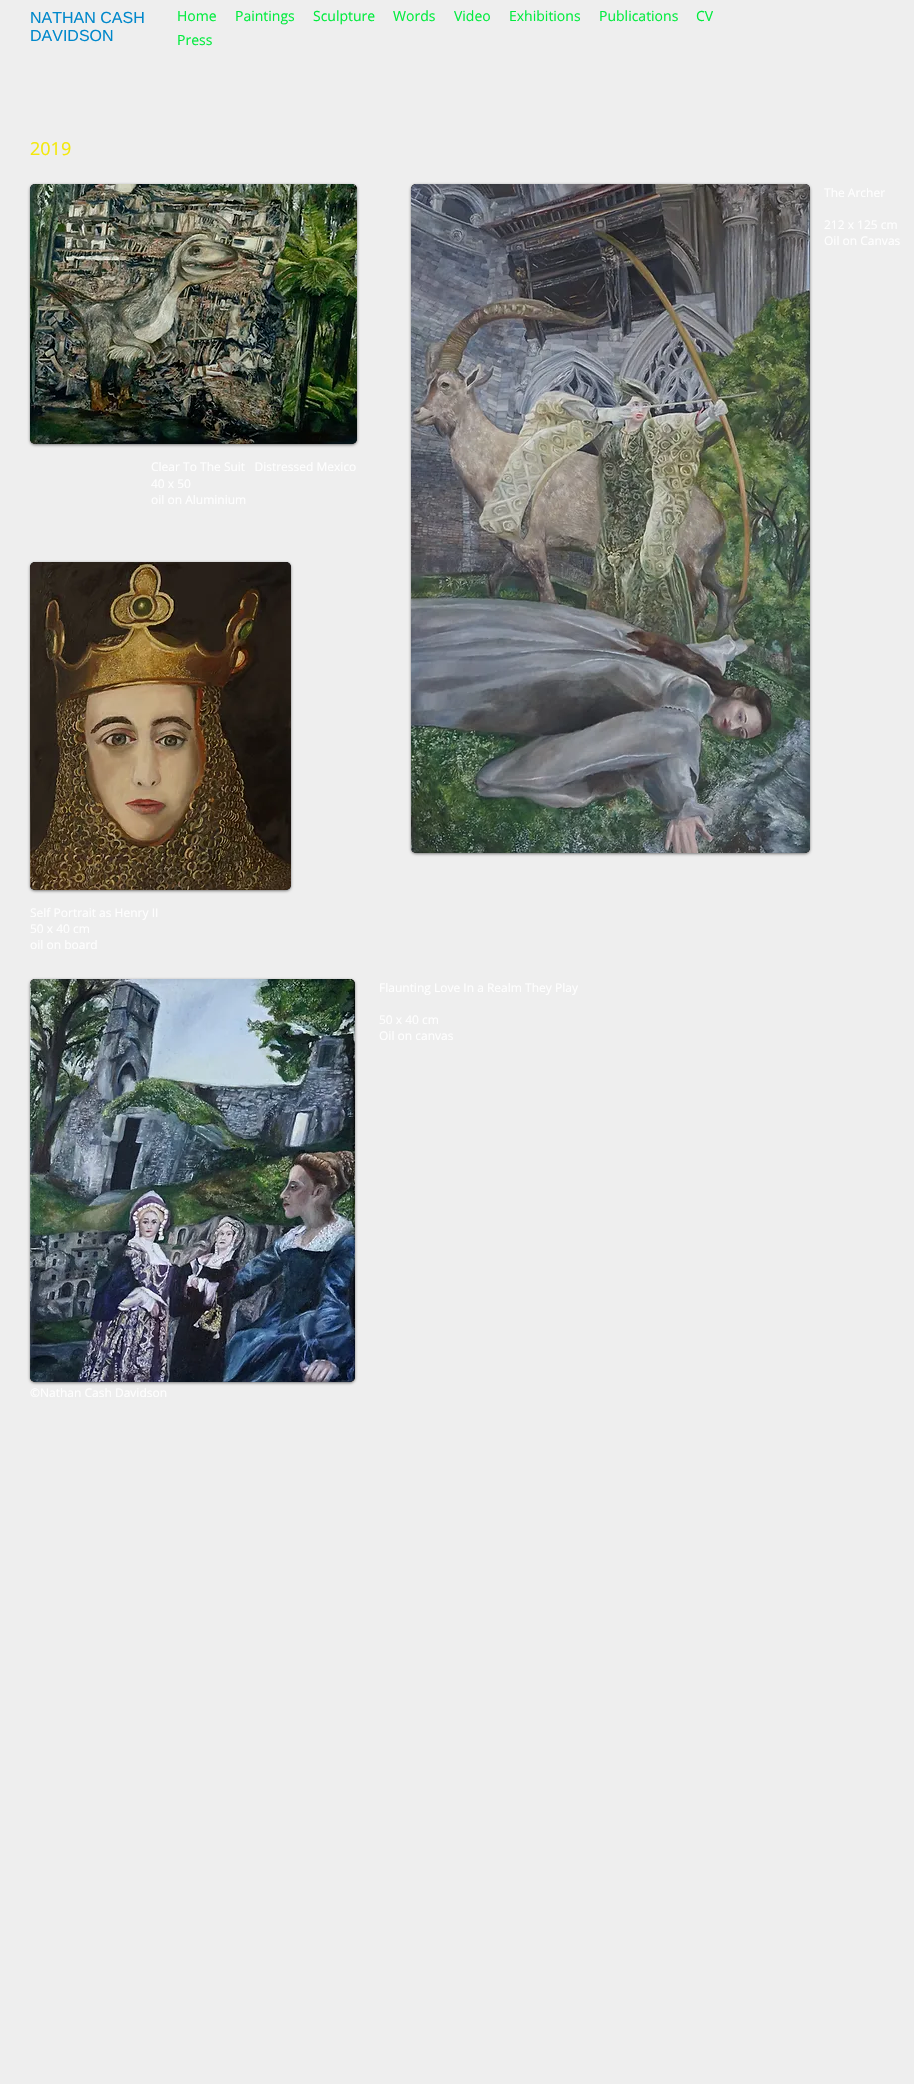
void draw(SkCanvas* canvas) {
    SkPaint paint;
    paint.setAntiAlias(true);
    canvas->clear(0xFFEEEEEE);
    SkFont font1(fontMgr->matchFamilyStyle("Liberation Sans", SkFontStyle::Normal()), 16);
    font1.setSubpixel(true);
    paint.setColor(0xFF0088CB);
    canvas->drawString("NATHAN CASH", 30, 23, font1, paint);
    canvas->drawString("DAVIDSON", 30, 41, font1, paint);
    SkFont font2(fontMgr->matchFamilyStyle("Open Sans", SkFontStyle::Normal()), 14);
    font2.setSubpixel(true);
    paint.setColor(0xFF00EC3D);
    canvas->drawString("Home", 177, 21, font2, paint);
    canvas->drawString("Paintings", 235, 21, font2, paint);
    canvas->drawString("Sculpture", 313, 21, font2, paint);
    canvas->drawString("Words", 393, 21, font2, paint);
    canvas->drawString("Video", 454, 21, font2, paint);
    canvas->drawString("Exhibitions", 509, 21, font2, paint);
    canvas->drawString("Publications", 599, 21, font2, paint);
    canvas->drawString("CV", 696, 21, font2, paint);
    canvas->drawString("Press", 177, 45, font2, paint);
    SkFont font3(fontMgr->matchFamilyStyle("Open Sans", SkFontStyle::Normal()), 18);
    font3.setSubpixel(true);
    paint.setColor(0xFFF4E909);
    canvas->drawString("2019", 30, 155, font3, paint);
    paint.setColor(0x80000000);
    paint.setMaskFilter(SkMaskFilter::MakeBlur(kNormal_SkBlurStyle, 1.5f));
    canvas->drawRoundRect(SkRect::MakeXYWH(30, 185, 327, 260), 5, 5, paint);
    paint.setMaskFilter(nullptr);
    paint.setColor(0xFF000000);
    canvas->drawRoundRect(SkRect::MakeXYWH(30, 184, 327, 260), 5, 5, paint);
    canvas->drawImageRect(SkImages::DeferredFromEncodedData(SkData::MakeFromFileName("img1.png")), SkRect::MakeXYWH(30, 184, 327, 260), SkSamplingOptions());
    paint.setColor(0x80000000);
    paint.setMaskFilter(SkMaskFilter::MakeBlur(kNormal_SkBlurStyle, 1.5f));
    canvas->drawRoundRect(SkRect::MakeXYWH(411, 185, 399, 669), 5, 5, paint);
    paint.setMaskFilter(nullptr);
    paint.setColor(0xFF000000);
    canvas->drawRoundRect(SkRect::MakeXYWH(411, 184, 399, 669), 5, 5, paint);
    canvas->drawImageRect(SkImages::DeferredFromEncodedData(SkData::MakeFromFileName("img2.png")), SkRect::MakeXYWH(411, 184, 399, 669), SkSamplingOptions());
    SkFont font4(fontMgr->matchFamilyStyle("Open Sans", SkFontStyle::Normal()), 12);
    font4.setSubpixel(true);
    paint.setColor(0xFFFFFFFF);
    canvas->drawString("The Archer", 824, 197, font4, paint);
    canvas->drawString("212 x 125 cm", 824, 229, font4, paint);
    canvas->drawString("Oil on Canvas", 824, 245, font4, paint);
    canvas->drawString("Clear To The Suit   Distressed Mexico", 151, 471, font4, paint);
    canvas->drawString("40 x 50", 151, 488, font4, paint);
    canvas->drawString("oil on Aluminium", 151, 504, font4, paint);
    paint.setColor(0x80000000);
    paint.setMaskFilter(SkMaskFilter::MakeBlur(kNormal_SkBlurStyle, 1.5f));
    canvas->drawRoundRect(SkRect::MakeXYWH(30, 563, 261, 328), 5, 5, paint);
    paint.setMaskFilter(nullptr);
    paint.setColor(0xFF000000);
    canvas->drawRoundRect(SkRect::MakeXYWH(30, 562, 261, 328), 5, 5, paint);
    canvas->drawImageRect(SkImages::DeferredFromEncodedData(SkData::MakeFromFileName("img3.png")), SkRect::MakeXYWH(30, 562, 261, 328), SkSamplingOptions());
    paint.setColor(0xFFFFFFFF);
    canvas->drawString("Self Portrait as Henry II", 30, 917, font4, paint);
    canvas->drawString("50 x 40 cm", 30, 933, font4, paint);
    canvas->drawString("oil on board", 30, 949, font4, paint);
    paint.setColor(0x80000000);
    paint.setMaskFilter(SkMaskFilter::MakeBlur(kNormal_SkBlurStyle, 1.5f));
    canvas->drawRoundRect(SkRect::MakeXYWH(30, 980, 325, 403), 5, 5, paint);
    paint.setMaskFilter(nullptr);
    paint.setColor(0xFF000000);
    canvas->drawRoundRect(SkRect::MakeXYWH(30, 979, 325, 403), 5, 5, paint);
    canvas->drawImageRect(SkImages::DeferredFromEncodedData(SkData::MakeFromFileName("img4.png")), SkRect::MakeXYWH(30, 979, 325, 403), SkSamplingOptions());
    paint.setColor(0xFFFFFFFF);
    canvas->drawString("Flaunting Love In a Realm They Play", 379, 992, font4, paint);
    canvas->drawString("50 x 40 cm", 379, 1024, font4, paint);
    canvas->drawString("Oil on canvas", 379, 1040, font4, paint);
    canvas->drawString("©Nathan Cash Davidson", 30, 1397, font4, paint);
}
